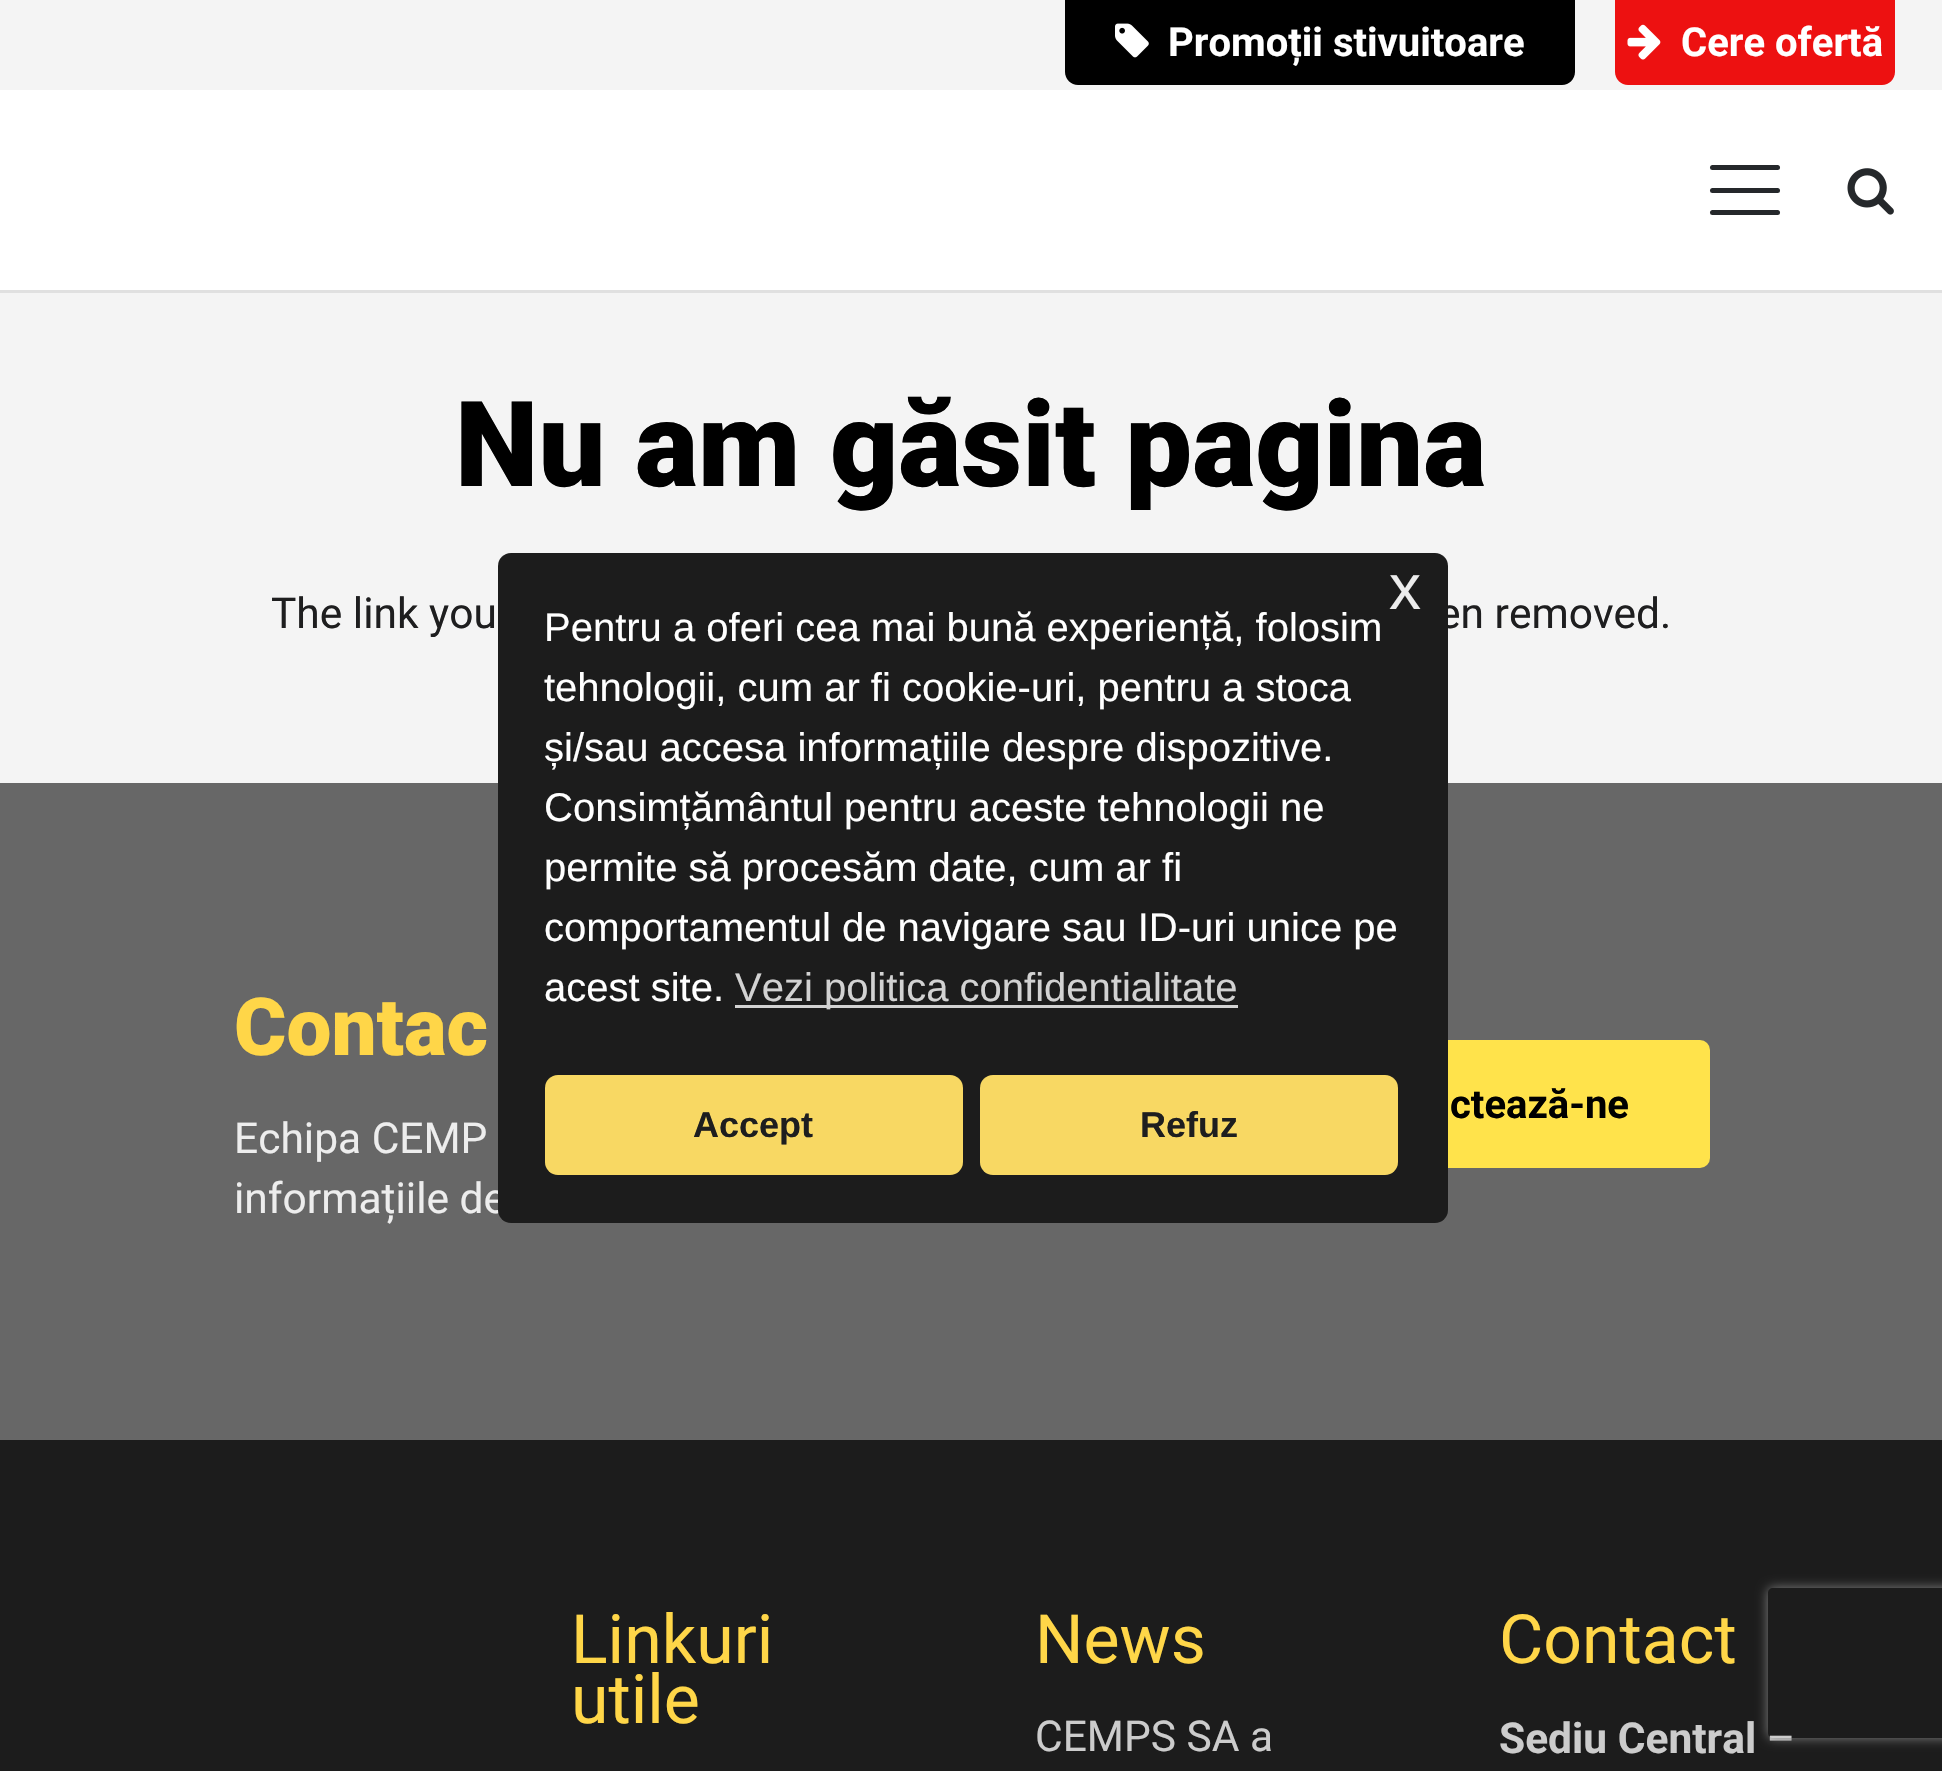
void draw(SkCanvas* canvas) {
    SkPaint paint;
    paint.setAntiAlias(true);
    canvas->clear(0xFFF4F4F4);
    paint.setColor(0xFF000000);
    canvas->drawPath(SkPathBuilder().moveTo(1065, 0).lineTo(1575, 0).lineTo(1575, 72).cubicTo(1575, 79, 1569, 85, 1562, 85).lineTo(1078, 85).cubicTo(1071, 85, 1065, 79, 1065, 72).close().detach(), paint);
    canvas->drawImageRect(SkImages::DeferredFromEncodedData(SkData::MakeFromFileName("img1.png")), SkRect::MakeXYWH(1115, 23, 34, 35), SkSamplingOptions());
    SkFont font1(fontMgr->matchFamilyStyle("Roboto", SkFontStyle::Bold()), 40);
    font1.setSubpixel(true);
    paint.setColor(0xFFFFFFFF);
    canvas->drawString("Promoții stivuitoare", 1168, 56, font1, paint);
    paint.setColor(0xFFED1111);
    canvas->drawPath(SkPathBuilder().moveTo(1615, 0).lineTo(1895, 0).lineTo(1895, 72).cubicTo(1895, 79, 1889, 85, 1882, 85).lineTo(1628, 85).cubicTo(1621, 85, 1615, 79, 1615, 72).close().detach(), paint);
    canvas->drawImageRect(SkImages::DeferredFromEncodedData(SkData::MakeFromFileName("img2.png")), SkRect::MakeXYWH(1627, 24, 34, 36), SkSamplingOptions());
    paint.setColor(0xFFFFFFFF);
    canvas->drawString("Cere ofertă", 1681, 56, font1, paint);
    paint.setColor(0xFFE0E0E0);
    canvas->drawPath(SkPathBuilder().moveTo(0, 290).lineTo(0, 293).lineTo(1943, 293).lineTo(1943, 93).lineTo(1942, 93).lineTo(1942, 290).close().detach(), paint);
    paint.setColor(0xFFFFFFFF);
    canvas->drawRect(SkRect::MakeXYWH(0, 90, 1942, 200), paint);
    paint.setColor(0xFF25282B);
    canvas->drawRoundRect(SkRect::MakeXYWH(1710, 188, 70, 5), 2.5f, 2.5f, paint);
    canvas->drawRoundRect(SkRect::MakeXYWH(1710, 165, 70, 5), 2.5f, 2.5f, paint);
    canvas->drawRoundRect(SkRect::MakeXYWH(1710, 210, 70, 5), 2.5f, 2.5f, paint);
    canvas->drawImageRect(SkImages::DeferredFromEncodedData(SkData::MakeFromFileName("img3.png")), SkRect::MakeXYWH(1847, 168, 47, 47), SkSamplingOptions());
    SkFont font2(fontMgr->matchFamilyStyle("Roboto", SkFontStyle(900, SkFontStyle::kNormal_Width, SkFontStyle::kUpright_Slant)), 118.75f);
    font2.setSubpixel(true);
    paint.setColor(0xFF000000);
    canvas->drawString("Nu am găsit pagina", 455, 486, font2, paint);
    SkFont font3(fontMgr->matchFamilyStyle("Roboto", SkFontStyle::Normal()), 42.5f);
    font3.setSubpixel(true);
    paint.setColor(0xFF1E1E1F);
    canvas->drawString("The link you", 271, 628, font3, paint);
    canvas->drawString("en removed.", 1438, 628, font3, paint);
    paint.setColor(0xFF676767);
    canvas->drawRect(SkRect::MakeXYWH(0, 783, 1942, 657), paint);
    paint.setColor(0xFFEDEDED);
    canvas->drawString("informațiile de", 234, 1213, font3, paint);
    paint.setColor(0xFFFFE34B);
    canvas->drawRoundRect(SkRect::MakeXYWH(1215, 1040, 495, 128), 10, 10, paint);
    paint.setColor(0xFF1C1C1C);
    canvas->drawRoundRect(SkRect::MakeXYWH(498, 553, 950, 670), 13, 13, paint);
    SkFont font4(fontMgr->matchFamilyStyle("Liberation Sans", SkFontStyle::Normal()), 64);
    font4.setSubpixel(true);
    paint.setColor(0xFFEDEDED);
    canvas->drawString("x", 1389, 609, font4, paint);
    SkFont font5(fontMgr->matchFamilyStyle("Liberation Sans", SkFontStyle::Normal()), 40);
    font5.setSubpixel(true);
    paint.setColor(0xFFFFFFFF);
    canvas->drawString("Pentru a oferi cea mai bună experiență, folosim", 544, 641, font5, paint);
    canvas->drawString("tehnologii, cum ar fi cookie-uri, pentru a stoca", 544, 701, font5, paint);
    canvas->drawString("și/sau accesa informațiile despre dispozitive.", 544, 761, font5, paint);
    canvas->drawString("Consimțământul pentru aceste tehnologii ne", 544, 821, font5, paint);
    canvas->drawString("permite să procesăm date, cum ar fi", 544, 881, font5, paint);
    canvas->drawString("comportamentul de navigare sau ID-uri unice pe", 544, 941, font5, paint);
    canvas->drawString("acest site.", 544, 1001, font5, paint);
    paint.setColor(0xFFD2D2D2);
    canvas->drawRect(SkRect::MakeXYWH(735, 1005, 503, 3), paint);
    canvas->drawString("Vezi politica confidentialitate", 735, 1001, font5, paint);
    paint.setColor(0xFFF8D863);
    canvas->drawRoundRect(SkRect::MakeXYWH(545, 1075, 418, 100), 13, 13, paint);
    SkFont font6(fontMgr->matchFamilyStyle("Liberation Sans", SkFontStyle::Bold()), 36);
    font6.setSubpixel(true);
    paint.setColor(0xFF1E1E1F);
    canvas->drawString("Accept", 693, 1137, font6, paint);
    paint.setColor(0xFFF8D863);
    canvas->drawRoundRect(SkRect::MakeXYWH(980, 1075, 418, 100), 13, 13, paint);
    paint.setColor(0xFF1E1E1F);
    canvas->drawString("Refuz", 1140, 1137, font6, paint);
    SkFont font7(fontMgr->matchFamilyStyle("Roboto", SkFontStyle(900, SkFontStyle::kNormal_Width, SkFontStyle::kUpright_Slant)), 80);
    font7.setSubpixel(true);
    paint.setColor(0xFFFFD648);
    canvas->drawString("Contac", 234, 1055, font7, paint);
    paint.setColor(0xFFEDEDED);
    canvas->drawString("Echipa CEMP", 234, 1153, font3, paint);
    paint.setColor(0xFF000000);
    canvas->drawString("ctează-ne", 1450, 1118, font1, paint);
    paint.setColor(0xFF1C1C1C);
    canvas->drawRect(SkRect::MakeXYWH(0, 1440, 1942, 331), paint);
    SkFont font8(fontMgr->matchFamilyStyle("Roboto", SkFontStyle::Normal()), 68);
    font8.setSubpixel(true);
    paint.setColor(0xFFFFD648);
    canvas->drawString("Linkuri", 571, 1663, font8, paint);
    canvas->drawString("utile", 571, 1723, font8, paint);
    canvas->drawString("News", 1035, 1663, font8, paint);
    paint.setColor(0xFFCCCCCC);
    canvas->drawString("CEMPS SA a", 1035, 1751, font3, paint);
    paint.setColor(0xFFFFD648);
    canvas->drawString("Contact", 1499, 1663, font8, paint);
    SkFont font9(fontMgr->matchFamilyStyle("Roboto", SkFontStyle::Bold()), 42.5f);
    font9.setSubpixel(true);
    paint.setColor(0xFFCCCCCC);
    canvas->drawString("Sediu Central –", 1499, 1753, font9, paint);
    canvas->save();
    canvas->clipPath(SkPathBuilder(SkPathFillType::kEvenOdd).moveTo(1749, 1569).lineTo(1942, 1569).lineTo(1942, 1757).lineTo(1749, 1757).close().moveTo(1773, 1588).lineTo(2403, 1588).cubicTo(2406, 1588, 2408, 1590, 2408, 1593).lineTo(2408, 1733).cubicTo(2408, 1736, 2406, 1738, 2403, 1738).lineTo(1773, 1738).cubicTo(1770, 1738, 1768, 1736, 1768, 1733).lineTo(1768, 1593).cubicTo(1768, 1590, 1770, 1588, 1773, 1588).close().detach(), true);
    paint.setColor(0xFF808080);
    paint.setMaskFilter(SkMaskFilter::MakeBlur(kNormal_SkBlurStyle, 6));
    canvas->drawRoundRect(SkRect::MakeXYWH(1768, 1588, 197, 150), 5, 5, paint);
    paint.setMaskFilter(nullptr);
    canvas->restore();
}
